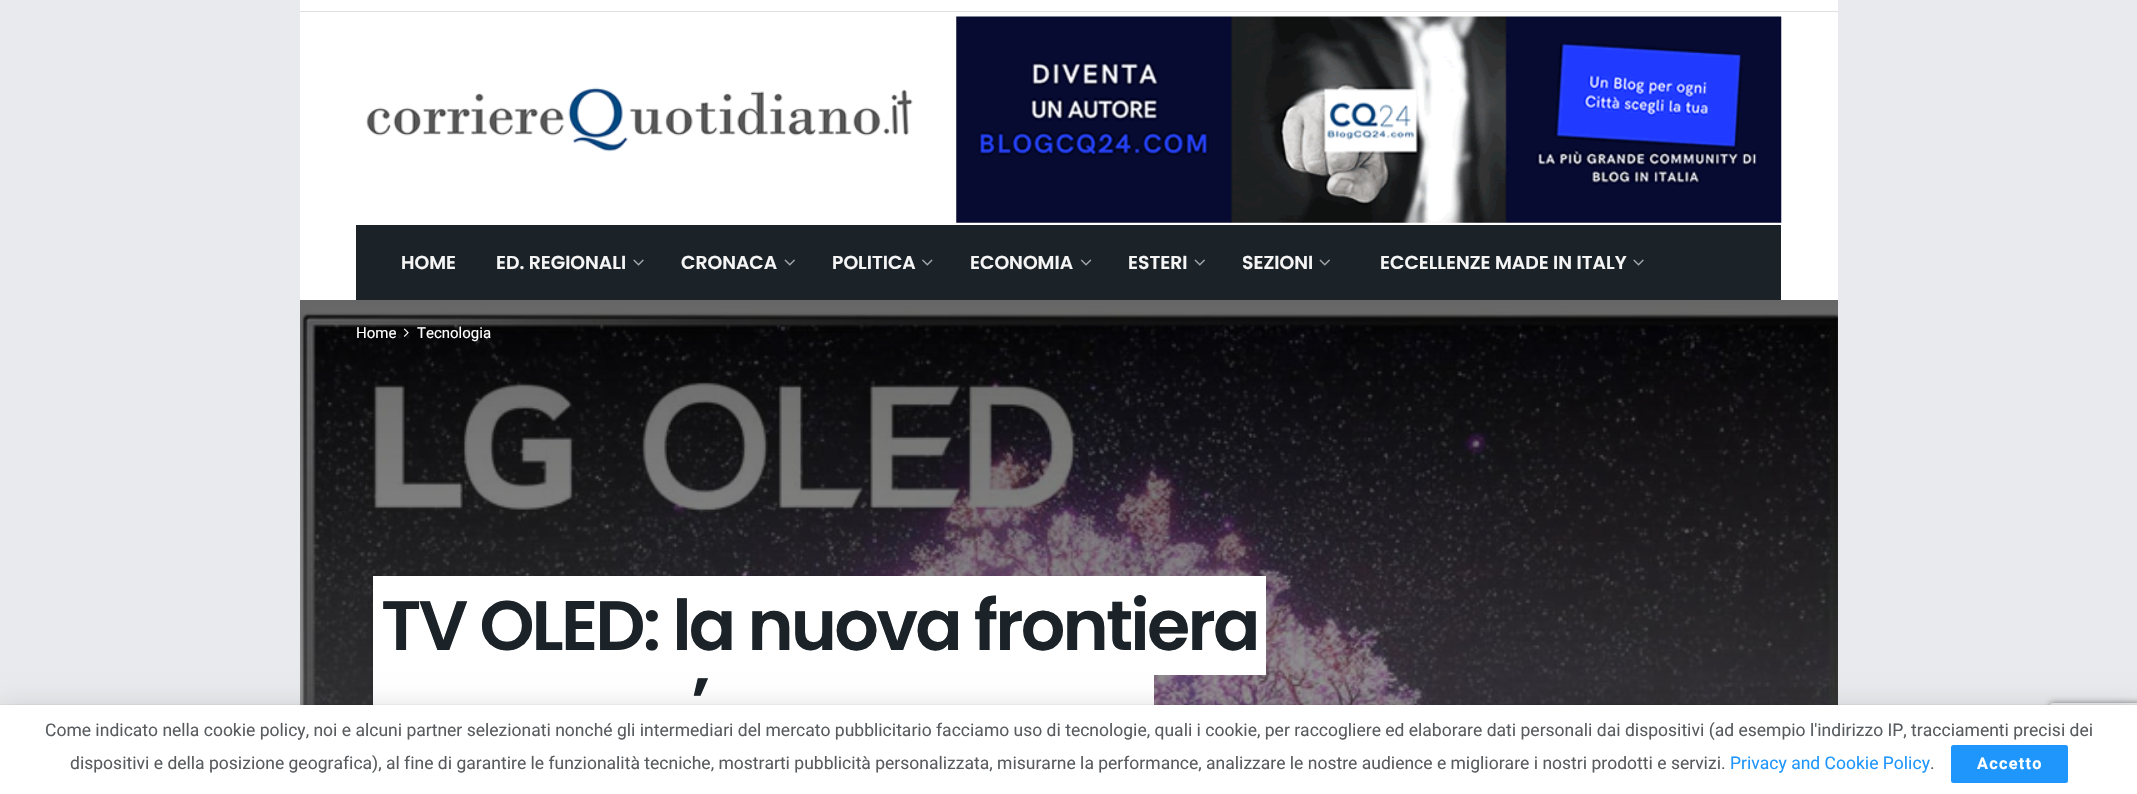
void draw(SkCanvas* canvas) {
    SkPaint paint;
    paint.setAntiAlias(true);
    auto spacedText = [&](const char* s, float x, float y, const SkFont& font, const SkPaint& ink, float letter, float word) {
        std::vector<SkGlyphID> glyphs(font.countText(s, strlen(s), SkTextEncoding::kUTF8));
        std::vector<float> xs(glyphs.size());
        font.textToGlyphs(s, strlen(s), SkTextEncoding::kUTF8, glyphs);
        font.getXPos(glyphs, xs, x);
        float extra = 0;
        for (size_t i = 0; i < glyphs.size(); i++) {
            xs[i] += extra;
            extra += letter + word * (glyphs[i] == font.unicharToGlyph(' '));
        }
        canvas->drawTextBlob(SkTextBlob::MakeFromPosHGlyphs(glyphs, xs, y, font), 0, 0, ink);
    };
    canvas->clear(0xFFE9EAED);
    paint.setColor(0xFFFFFFFF);
    canvas->drawRect(SkRect::MakeXYWH(300, 0, 1538, 300), paint);
    paint.setColor(0xFFE0E0E0);
    canvas->drawRect(SkRect::MakeXYWH(300, 11, 1538, 1), paint);
    canvas->drawImageRect(SkImages::DeferredFromEncodedData(SkData::MakeFromFileName("img1.png")), SkRect::MakeXYWH(366, 87, 547, 65), SkSamplingOptions());
    canvas->drawImageRect(SkImages::DeferredFromEncodedData(SkData::MakeFromFileName("img2.png")), SkRect::MakeXYWH(956, 16, 826, 207), SkSamplingOptions());
    paint.setColor(0xFF1B2228);
    canvas->drawRect(SkRect::MakeXYWH(356, 225, 1425, 75), paint);
    SkFont font1(fontMgr->matchFamilyStyle("Poppins", SkFontStyle(600, SkFontStyle::kNormal_Width, SkFontStyle::kUpright_Slant)), 18.75f);
    font1.setSubpixel(true);
    paint.setColor(0xFFF5F5F5);
    canvas->drawString("HOME", 401, 269, font1, paint);
    canvas->drawString("ED. REGIONALI", 496, 269, font1, paint);
    canvas->drawImageRect(SkImages::DeferredFromEncodedData(SkData::MakeFromFileName("img3.png")), SkRect::MakeXYWH(633, 259, 11, 7), SkSamplingOptions());
    canvas->drawString("CRONACA", 681, 269, font1, paint);
    canvas->drawImageRect(SkImages::DeferredFromEncodedData(SkData::MakeFromFileName("img4.png")), SkRect::MakeXYWH(784, 259, 11, 7), SkSamplingOptions());
    canvas->drawString("POLITICA", 832, 269, font1, paint);
    canvas->drawImageRect(SkImages::DeferredFromEncodedData(SkData::MakeFromFileName("img5.png")), SkRect::MakeXYWH(922, 259, 11, 7), SkSamplingOptions());
    canvas->drawString("ECONOMIA", 970, 269, font1, paint);
    canvas->drawImageRect(SkImages::DeferredFromEncodedData(SkData::MakeFromFileName("img6.png")), SkRect::MakeXYWH(1080, 259, 12, 7), SkSamplingOptions());
    canvas->drawString("ESTERI", 1128, 269, font1, paint);
    canvas->drawImageRect(SkImages::DeferredFromEncodedData(SkData::MakeFromFileName("img4.png")), SkRect::MakeXYWH(1194, 259, 11, 7), SkSamplingOptions());
    canvas->drawString("SEZIONI", 1242, 269, font1, paint);
    canvas->drawImageRect(SkImages::DeferredFromEncodedData(SkData::MakeFromFileName("img4.png")), SkRect::MakeXYWH(1319, 259, 11, 7), SkSamplingOptions());
    canvas->drawString("ECCELLENZE MADE IN ITALY", 1380, 269, font1, paint);
    canvas->drawImageRect(SkImages::DeferredFromEncodedData(SkData::MakeFromFileName("img3.png")), SkRect::MakeXYWH(1633, 259, 11, 7), SkSamplingOptions());
    {
        const SkColor colors[] = {0xFF000000, 0xFF545454};
        const float stops[] = {0, 1};
        const SkPoint ends[] = {{1069, 300}, {1069, 738}};
        paint.setShader(SkGradientShader::MakeLinear(ends, colors, stops, 2, SkTileMode::kClamp));
        paint.setAlpha(255);
    }
    canvas->drawRect(SkRect::MakeXYWH(300, 300, 1538, 405), paint);
    canvas->drawImageRect(SkImages::DeferredFromEncodedData(SkData::MakeFromFileName("img7.png")), SkRect::MakeXYWH(300, 300, 1538, 405), SkSamplingOptions());
    SkFont font2(fontMgr->matchFamilyStyle("Heebo", SkFontStyle::Normal()), 15);
    font2.setSubpixel(true);
    paint.setShader(nullptr);
    paint.setColor(0xFFFFFFFF);
    canvas->drawString("Home", 356, 338, font2, paint);
    canvas->drawImageRect(SkImages::DeferredFromEncodedData(SkData::MakeFromFileName("img8.png")), SkRect::MakeXYWH(403, 328, 6, 9), SkSamplingOptions());
    canvas->drawString("Tecnologia", 417, 338, font2, paint);
    canvas->drawRect(SkRect::MakeXYWH(381, 576, 877, 99), paint);
    SkFont font3(fontMgr->matchFamilyStyle("Poppins", SkFontStyle(600, SkFontStyle::kNormal_Width, SkFontStyle::kUpright_Slant)), 70);
    font3.setSubpixel(true);
    paint.setColor(0xFF1B2228);
    spacedText("TV OLED: la nuova frontiera", 381, 650, font3, paint, -2.8f, 0);
    paint.setColor(0xFFFFFFFF);
    canvas->drawPath(SkPathBuilder().moveTo(373, 576).lineTo(373, 675).lineTo(381, 675).lineTo(381, 576).lineTo(1249, 576).close().detach(), paint);
    canvas->drawPath(SkPathBuilder().moveTo(390, 576).lineTo(1258, 576).lineTo(1258, 675).lineTo(1266, 675).lineTo(1266, 576).close().detach(), paint);
    canvas->drawPath(SkPathBuilder().moveTo(373, 654).lineTo(373, 753).lineTo(1136, 753).lineTo(1136, 752).lineTo(381, 752).lineTo(381, 654).close().detach(), paint);
    canvas->drawPath(SkPathBuilder().moveTo(390, 752).lineTo(390, 753).lineTo(1154, 753).lineTo(1154, 654).lineTo(1145, 654).lineTo(1145, 752).close().detach(), paint);
    canvas->drawRect(SkRect::MakeXYWH(381, 675, 764, 30), paint);
    paint.setColor(0xFF1B2228);
    spacedText("’", 691, 727, font3, paint, -2.8f, 0);
    canvas->save();
    canvas->clipPath(SkPathBuilder(SkPathFillType::kEvenOdd).moveTo(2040, 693).lineTo(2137, 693).lineTo(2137, 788).lineTo(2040, 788).close().moveTo(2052.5f, 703).lineTo(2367.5f, 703).cubicTo(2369, 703, 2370, 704, 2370, 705.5f).lineTo(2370, 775.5f).cubicTo(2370, 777, 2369, 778, 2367.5f, 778).lineTo(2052.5f, 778).cubicTo(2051, 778, 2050, 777, 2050, 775.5f).lineTo(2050, 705.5f).cubicTo(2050, 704, 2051, 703, 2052.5f, 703).close().detach(), true);
    paint.setColor(0xFF808080);
    paint.setMaskFilter(SkMaskFilter::MakeBlur(kNormal_SkBlurStyle, 3));
    canvas->drawRoundRect(SkRect::MakeXYWH(2050, 703, 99, 75), 2.5f, 2.5f, paint);
    paint.setMaskFilter(nullptr);
    canvas->restore();
    paint.setColor(0x26000000);
    paint.setMaskFilter(SkMaskFilter::MakeBlur(kNormal_SkBlurStyle, 12.5f));
    canvas->drawRect(SkRect::MakeXYWH(0, 708, 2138, 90), paint);
    paint.setMaskFilter(nullptr);
    paint.setColor(0x33000000);
    paint.setMaskFilter(SkMaskFilter::MakeBlur(kNormal_SkBlurStyle, 0.5f));
    canvas->drawRect(SkRect::MakeXYWH(0, 705, 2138, 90), paint);
    paint.setMaskFilter(nullptr);
    paint.setColor(0xFFFFFFFF);
    canvas->drawRect(SkRect::MakeXYWH(0, 705, 2137, 89), paint);
    SkFont font4(fontMgr->matchFamilyStyle("Heebo", SkFontStyle::Normal()), 17.5f);
    font4.setSubpixel(true);
    paint.setColor(0xFF595C5F);
    canvas->drawString("Come indicato nella cookie policy, noi e alcuni partner selezionati nonché gli intermediari del mercato pubblicitario facciamo uso di tecnologie, quali i cookie, per raccogliere ed elaborare dati personali dai dispositivi (ad esempio l'indirizzo IP, tracciamenti precisi dei", 45, 736, font4, paint);
    canvas->drawString("dispositivi e della posizione geografica), al fine di garantire le funzionalità tecniche, mostrarti pubblicità personalizzata, misurarne la performance, analizzare le nostre audience e migliorare i nostri prodotti e servizi.", 70, 769, font4, paint);
    paint.setColor(0xFF1E96FC);
    canvas->drawString("Privacy and Cookie Policy", 1730, 769, font4, paint);
    paint.setColor(0xFF595C5F);
    canvas->drawString(".", 1930, 769, font4, paint);
    paint.setColor(0xFF1E96FC);
    canvas->drawRoundRect(SkRect::MakeXYWH(1951, 745, 117, 38), 2.5f, 2.5f, paint);
    SkFont font5(fontMgr->matchFamilyStyle("Heebo", SkFontStyle::Bold()), 16.25f);
    font5.setSubpixel(true);
    paint.setColor(0xFFFFFFFF);
    spacedText("Accetto", 1977, 769, font5, paint, 1.25f, 0);
}
